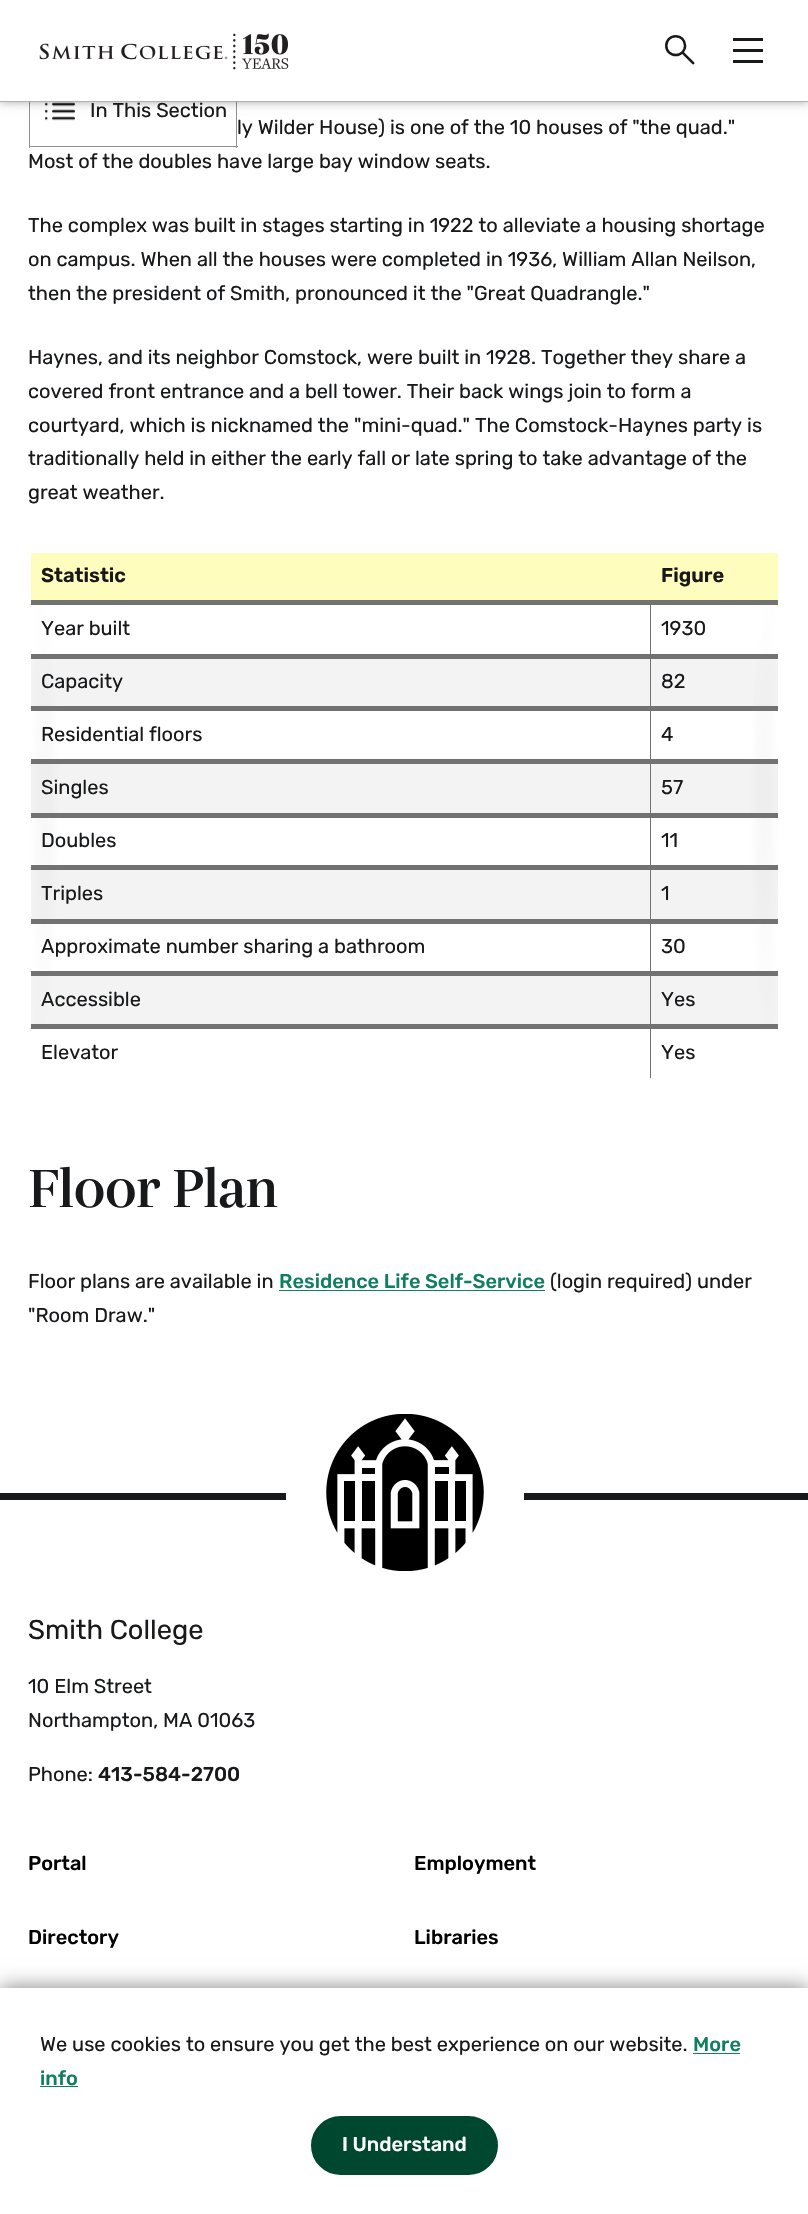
void draw(SkCanvas* canvas) {
    SkPaint paint;
    paint.setAntiAlias(true);
    auto spacedText = [&](const char* s, float x, float y, const SkFont& font, const SkPaint& ink, float letter, float word) {
        std::vector<SkGlyphID> glyphs(font.countText(s, strlen(s), SkTextEncoding::kUTF8));
        std::vector<float> xs(glyphs.size());
        font.textToGlyphs(s, strlen(s), SkTextEncoding::kUTF8, glyphs);
        font.getXPos(glyphs, xs, x);
        float extra = 0;
        for (size_t i = 0; i < glyphs.size(); i++) {
            xs[i] += extra;
            extra += letter + word * (glyphs[i] == font.unicharToGlyph(' '));
        }
        canvas->drawTextBlob(SkTextBlob::MakeFromPosHGlyphs(glyphs, xs, y, font), 0, 0, ink);
    };
    canvas->clear(0xFFFFFFFF);
    paint.setColor(0xFF919292);
    canvas->drawRect(SkRect::MakeXYWH(236, 102, 1, 46), paint);
    canvas->drawRect(SkRect::MakeXYWH(29, 146, 209, 1), paint);
    canvas->drawRect(SkRect::MakeXYWH(29, 102, 1, 46), paint);
    canvas->drawImageRect(SkImages::DeferredFromEncodedData(SkData::MakeFromFileName("img3.png")), SkRect::MakeXYWH(45, 102, 30, 19), SkSamplingOptions());
    paint.setColor(0x66000000);
    paint.setMaskFilter(SkMaskFilter::MakeBlur(kNormal_SkBlurStyle, 5));
    canvas->drawRect(SkRect::MakeXYWH(0, 0, 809, 101), paint);
    paint.setMaskFilter(nullptr);
    paint.setColor(0xFFFFFFFF);
    canvas->drawRect(SkRect::MakeXYWH(0, 0, 808, 101), paint);
    canvas->drawImageRect(SkImages::DeferredFromEncodedData(SkData::MakeFromFileName("img1.png")), SkRect::MakeXYWH(39, 33, 250, 37), SkSamplingOptions());
    canvas->drawImageRect(SkImages::DeferredFromEncodedData(SkData::MakeFromFileName("img2.png")), SkRect::MakeXYWH(665, 35, 30, 30), SkSamplingOptions());
    paint.setColor(0xFF18191B);
    canvas->drawRect(SkRect::MakeXYWH(733, 38, 30, 3), paint);
    canvas->drawRect(SkRect::MakeXYWH(733, 49, 30, 3), paint);
    canvas->drawRect(SkRect::MakeXYWH(733, 60, 30, 3), paint);
    paint.setColor(0xFFB1B1B1);
    canvas->drawRect(SkRect::MakeXYWH(0, 101, 808, 1), paint);
    SkFont font1(fontMgr->matchFamilyStyle("Rubik", SkFontStyle::Normal()), 20);
    font1.setSubpixel(true);
    paint.setColor(0xFF18191B);
    canvas->drawString("In This Section", 90, 117, font1, paint);
    canvas->drawString("ly Wilder House) is one of the 10 houses of \"the quad.\"", 237, 134, font1, paint);
    canvas->drawString("Most of the doubles have large bay window seats.", 28, 168, font1, paint);
    canvas->drawString("The complex was built in stages starting in 1922 to alleviate a housing shortage", 28, 232, font1, paint);
    canvas->drawString("on campus. When all the houses were completed in 1936, William Allan Neilson,", 28, 266, font1, paint);
    canvas->drawString("then the president of Smith, pronounced it the \"Great Quadrangle.\"", 28, 300, font1, paint);
    canvas->drawString("Haynes, and its neighbor Comstock, were built in 1928. Together they share a", 28, 364, font1, paint);
    canvas->drawString("covered front entrance and a bell tower. Their back wings join to form a", 28, 398, font1, paint);
    canvas->drawString("courtyard, which is nicknamed the \"mini-quad.\" The Comstock-Haynes party is", 28, 432, font1, paint);
    canvas->drawString("traditionally held in either the early fall or late spring to take advantage of the", 28, 465, font1, paint);
    canvas->drawString("great weather.", 28, 499, font1, paint);
    {
        const SkColor colors[] = {0xFF8C8C8D, 0xFFFFFFFF};
        const float stops[] = {0, 1};
        SkMatrix m = SkMatrix::Translate(780, 825).preScale(30, 275);
        paint.setShader(SkGradientShader::MakeRadial({0, 0}, 1, colors, stops, 2, SkTileMode::kClamp, 0, &m));
        paint.setAlpha(255);
    }
    canvas->drawRect(SkRect::MakeXYWH(751, 556, 28, 538), paint);
    {
        const SkColor colors[] = {0xFF8C8C8D, 0xFFFFFFFF};
        const float stops[] = {0, 1};
        SkMatrix m = SkMatrix::Translate(29, 825).preScale(30, 275);
        paint.setShader(SkGradientShader::MakeRadial({0, 0}, 1, colors, stops, 2, SkTileMode::kClamp, 0, &m));
        paint.setAlpha(255);
    }
    canvas->drawRect(SkRect::MakeXYWH(30, 556, 28, 538), paint);
    {
        const SkColor colors[] = {0xFFFFFFFF, 0x00FFFFFF};
        const float stops[] = {0, 1};
        const SkPoint ends[] = {{29, 825}, {149, 825}};
        paint.setShader(SkGradientShader::MakeLinear(ends, colors, stops, 2, SkTileMode::kClamp));
        paint.setAlpha(255);
    }
    canvas->drawRect(SkRect::MakeXYWH(30, 556, 28, 538), paint);
    {
        const SkColor colors[] = {0xFFFFFFFF, 0x00FFFFFF};
        const float stops[] = {0, 1};
        const SkPoint ends[] = {{780, 825}, {660, 825}};
        paint.setShader(SkGradientShader::MakeLinear(ends, colors, stops, 2, SkTileMode::kClamp));
        paint.setAlpha(255);
    }
    canvas->drawRect(SkRect::MakeXYWH(751, 556, 28, 538), paint);
    {
        const SkColor colors[] = {0xFF8C8C8D, 0xFFFFFFFF};
        const float stops[] = {0, 1};
        SkMatrix m = SkMatrix::Translate(779, 815).preScale(30, 264);
        paint.setShader(SkGradientShader::MakeRadial({0, 0}, 1, colors, stops, 2, SkTileMode::kClamp, 0, &m));
        paint.setAlpha(255);
    }
    canvas->drawRect(SkRect::MakeXYWH(750, 557, 28, 516), paint);
    {
        const SkColor colors[] = {0xFF8C8C8D, 0xFFFFFFFF};
        const float stops[] = {0, 1};
        SkMatrix m = SkMatrix::Translate(30, 815).preScale(30, 264);
        paint.setShader(SkGradientShader::MakeRadial({0, 0}, 1, colors, stops, 2, SkTileMode::kClamp, 0, &m));
        paint.setAlpha(255);
    }
    canvas->drawRect(SkRect::MakeXYWH(31, 557, 28, 516), paint);
    {
        const SkColor colors[] = {0xFFFFFFFF, 0x00FFFFFF};
        const float stops[] = {0, 1};
        const SkPoint ends[] = {{30, 815}, {150, 815}};
        paint.setShader(SkGradientShader::MakeLinear(ends, colors, stops, 2, SkTileMode::kClamp));
        paint.setAlpha(255);
    }
    canvas->drawRect(SkRect::MakeXYWH(31, 557, 28, 516), paint);
    {
        const SkColor colors[] = {0xFFFFFFFF, 0x00FFFFFF};
        const float stops[] = {0, 1};
        const SkPoint ends[] = {{779, 815}, {659, 815}};
        paint.setShader(SkGradientShader::MakeLinear(ends, colors, stops, 2, SkTileMode::kClamp));
        paint.setAlpha(255);
    }
    canvas->drawRect(SkRect::MakeXYWH(750, 557, 28, 516), paint);
    paint.setShader(nullptr);
    paint.setColor(0xFFFFFDBD);
    canvas->drawRect(SkRect::MakeXYWH(31, 553, 747, 47), paint);
    paint.setColor(0xFF727273);
    canvas->drawRect(SkRect::MakeXYWH(31, 600, 747, 5), paint);
    SkFont font2(fontMgr->matchFamilyStyle("Rubik", SkFontStyle(600, SkFontStyle::kNormal_Width, SkFontStyle::kUpright_Slant)), 20);
    font2.setSubpixel(true);
    paint.setColor(0xFF18191B);
    canvas->drawString("Statistic", 41, 582, font2, paint);
    canvas->drawString("Figure", 661, 582, font2, paint);
    paint.setColor(0xFF727273);
    canvas->drawRect(SkRect::MakeXYWH(650, 605, 1, 54), paint);
    canvas->drawRect(SkRect::MakeXYWH(31, 654, 747, 5), paint);
    paint.setColor(0xFF18191B);
    canvas->drawString("Year built", 41, 635, font1, paint);
    canvas->drawString("1930", 661, 635, font1, paint);
    paint.setColor(0x40D0D0D0);
    canvas->drawRect(SkRect::MakeXYWH(31, 659, 747, 47), paint);
    paint.setColor(0xFF727273);
    canvas->drawRect(SkRect::MakeXYWH(650, 659, 1, 105), paint);
    canvas->drawRect(SkRect::MakeXYWH(31, 706, 747, 5), paint);
    paint.setColor(0xFF18191B);
    canvas->drawString("Capacity", 41, 688, font1, paint);
    canvas->drawString("82", 661, 688, font1, paint);
    paint.setColor(0xFF727273);
    canvas->drawRect(SkRect::MakeXYWH(31, 759, 747, 5), paint);
    paint.setColor(0xFF18191B);
    canvas->drawString("Residential floors", 41, 741, font1, paint);
    canvas->drawString("4", 661, 741, font1, paint);
    paint.setColor(0x40D0D0D0);
    canvas->drawRect(SkRect::MakeXYWH(31, 764, 747, 49), paint);
    paint.setColor(0xFF727273);
    canvas->drawRect(SkRect::MakeXYWH(650, 764, 1, 106), paint);
    canvas->drawRect(SkRect::MakeXYWH(31, 813, 747, 5), paint);
    paint.setColor(0xFF18191B);
    canvas->drawString("Singles", 41, 794, font1, paint);
    canvas->drawString("57", 661, 794, font1, paint);
    paint.setColor(0xFF727273);
    canvas->drawRect(SkRect::MakeXYWH(31, 865, 747, 5), paint);
    paint.setColor(0xFF18191B);
    canvas->drawString("Doubles", 41, 847, font1, paint);
    canvas->drawString("11", 661, 847, font1, paint);
    paint.setColor(0x40D0D0D0);
    canvas->drawRect(SkRect::MakeXYWH(31, 870, 747, 49), paint);
    paint.setColor(0xFF727273);
    canvas->drawRect(SkRect::MakeXYWH(650, 870, 1, 106), paint);
    canvas->drawRect(SkRect::MakeXYWH(31, 919, 747, 5), paint);
    paint.setColor(0xFF18191B);
    canvas->drawString("Triples", 41, 900, font1, paint);
    canvas->drawString("1", 661, 900, font1, paint);
    paint.setColor(0xFF727273);
    canvas->drawRect(SkRect::MakeXYWH(31, 971, 747, 5), paint);
    paint.setColor(0xFF18191B);
    canvas->drawString("Approximate number sharing a bathroom", 41, 953, font1, paint);
    canvas->drawString("30", 661, 953, font1, paint);
    paint.setColor(0x40D0D0D0);
    canvas->drawRect(SkRect::MakeXYWH(31, 976, 747, 48), paint);
    paint.setColor(0xFF727273);
    canvas->drawRect(SkRect::MakeXYWH(650, 976, 1, 102), paint);
    canvas->drawRect(SkRect::MakeXYWH(31, 1024, 747, 5), paint);
    paint.setColor(0xFF18191B);
    canvas->drawString("Accessible", 41, 1006, font1, paint);
    canvas->drawString("Yes", 661, 1006, font1, paint);
    canvas->drawString("Elevator", 41, 1059, font1, paint);
    canvas->drawString("Yes", 661, 1059, font1, paint);
    SkFont font3(fontMgr->matchFamilyStyle("Gabriela", SkFontStyle(600, SkFontStyle::kNormal_Width, SkFontStyle::kUpright_Slant)), 54.25f);
    font3.setSubpixel(true);
    spacedText("Floor Plan", 28, 1207, font3, paint, -1.25f, 0);
    canvas->drawString("Floor plans are available in", 28, 1288, font1, paint);
    SkFont font4(fontMgr->matchFamilyStyle("Rubik", SkFontStyle(500, SkFontStyle::kNormal_Width, SkFontStyle::kUpright_Slant)), 20);
    font4.setSubpixel(true);
    paint.setColor(0xFF117D62);
    canvas->drawString("Residence Life Self-Service", 279, 1288, font4, paint);
    canvas->drawRect(SkRect::MakeXYWH(279, 1290, 266, 1), paint);
    paint.setColor(0xFF18191B);
    canvas->drawString("(login required) under", 550, 1288, font1, paint);
    canvas->drawString("\"Room Draw.\"", 28, 1322, font1, paint);
    canvas->drawRect(SkRect::MakeXYWH(0, 1493, 808, 7), paint);
    paint.setColor(0xFFFFFFFF);
    canvas->drawRect(SkRect::MakeXYWH(286, 1493, 238, 7), paint);
    canvas->drawImageRect(SkImages::DeferredFromEncodedData(SkData::MakeFromFileName("img4.png")), SkRect::MakeXYWH(326, 1414, 158, 157), SkSamplingOptions());
    SkFont font5(fontMgr->matchFamilyStyle("Rubik", SkFontStyle::Normal()), 27.25f);
    font5.setSubpixel(true);
    paint.setColor(0xFF18191B);
    canvas->drawString("Smith College", 28, 1639, font5, paint);
    canvas->drawString("10 Elm Street", 28, 1693, font1, paint);
    canvas->drawString("Northampton, MA 01063", 28, 1727, font1, paint);
    canvas->drawString("Phone:", 28, 1781, font1, paint);
    canvas->drawString("413-584-2700", 98, 1781, font4, paint);
    paint.setColor(0xFF000000);
    canvas->drawString("Portal", 28, 1870, font4, paint);
    canvas->drawString("Employment", 414, 1870, font4, paint);
    canvas->drawString("Directory", 28, 1944, font4, paint);
    canvas->drawString("Libraries", 414, 1944, font4, paint);
    paint.setColor(0x80000000);
    paint.setMaskFilter(SkMaskFilter::MakeBlur(kNormal_SkBlurStyle, 10));
    canvas->drawRect(SkRect::MakeXYWH(0, 1988, 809, 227), paint);
    paint.setMaskFilter(nullptr);
    paint.setColor(0xFFFFFFFF);
    canvas->drawRect(SkRect::MakeXYWH(0, 1988, 808, 226), paint);
    paint.setColor(0xFF18191B);
    canvas->drawString("We use cookies to ensure you get the best experience on our website.", 40, 2051, font1, paint);
    paint.setColor(0xFF117D62);
    canvas->drawString("More", 693, 2051, font4, paint);
    canvas->drawRect(SkRect::MakeXYWH(693, 2053, 47, 1), paint);
    canvas->drawString("info", 40, 2085, font4, paint);
    canvas->drawRect(SkRect::MakeXYWH(40, 2086, 38, 1), paint);
    paint.setColor(0xFF00472F);
    canvas->drawRoundRect(SkRect::MakeXYWH(312.5f, 2117.5f, 184, 56), 28, 28, paint);
    paint.setStyle(SkPaint::kStroke_Style);
    paint.setStrokeWidth(3);
    canvas->drawRoundRect(SkRect::MakeXYWH(312.5f, 2117.5f, 184, 56), 28, 28, paint);
    paint.setStyle(SkPaint::kFill_Style);
    paint.setColor(0xFFFFFFFF);
    canvas->drawString("I Understand", 342, 2151, font4, paint);
}
